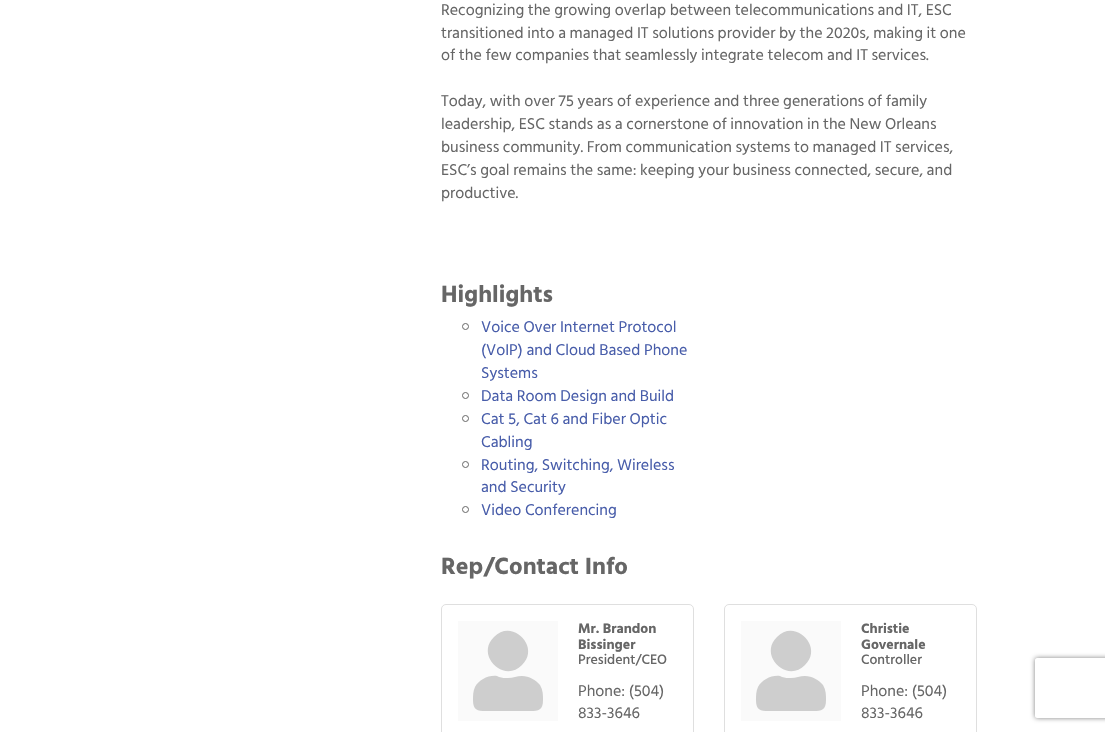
void draw(SkCanvas* canvas) {
    SkPaint paint;
    paint.setAntiAlias(true);
    canvas->clear(0xFFFFFFFF);
    SkFont font1(fontMgr->matchFamilyStyle("Hind Siliguri", SkFontStyle::Normal()), 16);
    font1.setSubpixel(true);
    paint.setColor(0xFF666666);
    canvas->drawString("Recognizing the growing overlap between telecommunications and IT, ESC", 441, 15, font1, paint);
    canvas->drawString("transitioned into a managed IT solutions provider by the 2020s, making it one", 441, 38, font1, paint);
    canvas->drawString("of the few companies that seamlessly integrate telecom and IT services.", 441, 60, font1, paint);
    canvas->drawString("Today, with over 75 years of experience and three generations of family", 441, 106, font1, paint);
    canvas->drawString("leadership, ESC stands as a cornerstone of innovation in the New Orleans", 441, 129, font1, paint);
    canvas->drawString("business community. From communication systems to managed IT services,", 441, 152, font1, paint);
    canvas->drawString("ESC’s goal remains the same: keeping your business connected, secure, and", 441, 175, font1, paint);
    canvas->drawString("productive.", 441, 198, font1, paint);
    SkFont font2(fontMgr->matchFamilyStyle("Hind Siliguri", SkFontStyle::Bold()), 24);
    font2.setSubpixel(true);
    canvas->drawString("Highlights", 441, 302, font2, paint);
    paint.setStyle(SkPaint::kStroke_Style);
    paint.setStrokeWidth(1);
    canvas->drawCircle(465.5f, 326.5f, 3, paint);
    paint.setStyle(SkPaint::kFill_Style);
    paint.setColor(0xFF485DAA);
    canvas->drawString("Voice Over Internet Protocol", 481, 332, font1, paint);
    canvas->drawString("(VoIP) and Cloud Based Phone", 481, 355, font1, paint);
    canvas->drawString("Systems", 481, 378, font1, paint);
    paint.setStyle(SkPaint::kStroke_Style);
    paint.setColor(0xFF666666);
    canvas->drawCircle(465.5f, 395.5f, 3, paint);
    paint.setStyle(SkPaint::kFill_Style);
    paint.setColor(0xFF485DAA);
    canvas->drawString("Data Room Design and Build", 481, 401, font1, paint);
    paint.setStyle(SkPaint::kStroke_Style);
    paint.setColor(0xFF666666);
    canvas->drawCircle(465.5f, 418.5f, 3, paint);
    paint.setStyle(SkPaint::kFill_Style);
    paint.setColor(0xFF485DAA);
    canvas->drawString("Cat 5, Cat 6 and Fiber Optic", 481, 424, font1, paint);
    canvas->drawString("Cabling", 481, 447, font1, paint);
    paint.setStyle(SkPaint::kStroke_Style);
    paint.setColor(0xFF666666);
    canvas->drawCircle(465.5f, 464.5f, 3, paint);
    paint.setStyle(SkPaint::kFill_Style);
    paint.setColor(0xFF485DAA);
    canvas->drawString("Routing, Switching, Wireless", 481, 470, font1, paint);
    canvas->drawString("and Security", 481, 492, font1, paint);
    paint.setStyle(SkPaint::kStroke_Style);
    paint.setColor(0xFF666666);
    canvas->drawCircle(465.5f, 509.5f, 3, paint);
    paint.setStyle(SkPaint::kFill_Style);
    paint.setColor(0xFF485DAA);
    canvas->drawString("Video Conferencing", 481, 515, font1, paint);
    paint.setColor(0xFF666666);
    canvas->drawString("Rep/Contact Info", 441, 574, font2, paint);
    paint.setStyle(SkPaint::kStroke_Style);
    paint.setColor(0xFFDFDFDF);
    canvas->drawRoundRect(SkRect::MakeXYWH(441.5f, 604.5f, 252, 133), 4.5f, 4.5f, paint);
    paint.setStyle(SkPaint::kFill_Style);
    paint.setColor(0xFFFAFAFA);
    canvas->drawRect(SkRect::MakeXYWH(458, 621, 100, 100), paint);
    paint.setColor(0xFFCECECE);
    canvas->drawPath(SkPathBuilder().moveTo(522, 665).cubicTo(504, 684, 475, 655, 494, 637).cubicTo(512, 618, 541, 647, 522, 665).close().moveTo(522, 676).cubicTo(529, 676, 536, 680, 540, 685).cubicTo(543, 690, 543, 695, 543, 700).cubicTo(543, 712, 537, 711, 526, 711).lineTo(490, 711).cubicTo(479, 711, 473, 712, 473, 700).cubicTo(473, 696, 473, 691, 475, 687).cubicTo(479, 680, 488, 675, 497, 676).lineTo(499, 677).cubicTo(502, 678, 505, 678, 508, 678).cubicTo(513, 678, 517, 676, 522, 676).close().detach(), paint);
    SkFont font3(fontMgr->matchFamilyStyle("Hind Siliguri", SkFontStyle::Bold()), 14);
    font3.setSubpixel(true);
    paint.setColor(0xFF666666);
    canvas->drawString("Mr. Brandon", 578, 633, font3, paint);
    canvas->drawString("Bissinger", 578, 649, font3, paint);
    SkFont font4(fontMgr->matchFamilyStyle("Hind Siliguri", SkFontStyle(500, SkFontStyle::kNormal_Width, SkFontStyle::kUpright_Slant)), 14);
    font4.setSubpixel(true);
    canvas->drawString("President/CEO", 578, 664, font4, paint);
    canvas->drawString("Phone: (504)", 578, 696, font1, paint);
    canvas->drawString("833-3646", 578, 718, font1, paint);
    paint.setStyle(SkPaint::kStroke_Style);
    paint.setColor(0xFFDFDFDF);
    canvas->drawRoundRect(SkRect::MakeXYWH(724.5f, 604.5f, 252, 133), 4.5f, 4.5f, paint);
    paint.setStyle(SkPaint::kFill_Style);
    paint.setColor(0xFFFAFAFA);
    canvas->drawRect(SkRect::MakeXYWH(741, 621, 100, 100), paint);
    paint.setColor(0xFFCECECE);
    canvas->drawPath(SkPathBuilder().moveTo(805, 665).cubicTo(787, 684, 758, 655, 777, 637).cubicTo(795, 618, 824, 647, 805, 665).close().moveTo(805, 676).cubicTo(812, 676, 819, 680, 823, 685).cubicTo(826, 690, 826, 695, 826, 700).cubicTo(826, 712, 820, 711, 809, 711).lineTo(773, 711).cubicTo(762, 711, 756, 712, 756, 700).cubicTo(756, 696, 756, 691, 758, 687).cubicTo(762, 680, 771, 675, 780, 676).lineTo(782, 677).cubicTo(785, 678, 788, 678, 791, 678).cubicTo(796, 678, 800, 676, 805, 676).close().detach(), paint);
    paint.setColor(0xFF666666);
    canvas->drawString("Christie", 861, 633, font3, paint);
    canvas->drawString("Governale", 861, 649, font3, paint);
    canvas->drawString("Controller", 861, 664, font4, paint);
    canvas->drawString("Phone: (504)", 861, 696, font1, paint);
    canvas->drawString("833-3646", 861, 718, font1, paint);
    canvas->save();
    canvas->clipPath(SkPathBuilder(SkPathFillType::kEvenOdd).moveTo(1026, 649).lineTo(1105, 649).lineTo(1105, 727).lineTo(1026, 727).close().moveTo(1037, 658).lineTo(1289, 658).cubicTo(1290, 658, 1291, 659, 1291, 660).lineTo(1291, 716).cubicTo(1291, 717, 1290, 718, 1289, 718).lineTo(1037, 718).cubicTo(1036, 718, 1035, 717, 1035, 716).lineTo(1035, 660).cubicTo(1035, 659, 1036, 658, 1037, 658).close().detach(), true);
    paint.setColor(0xFF808080);
    paint.setMaskFilter(SkMaskFilter::MakeBlur(kNormal_SkBlurStyle, 2.5f));
    canvas->drawRoundRect(SkRect::MakeXYWH(1035, 658, 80, 60), 2, 2, paint);
    paint.setMaskFilter(nullptr);
    canvas->restore();
}
